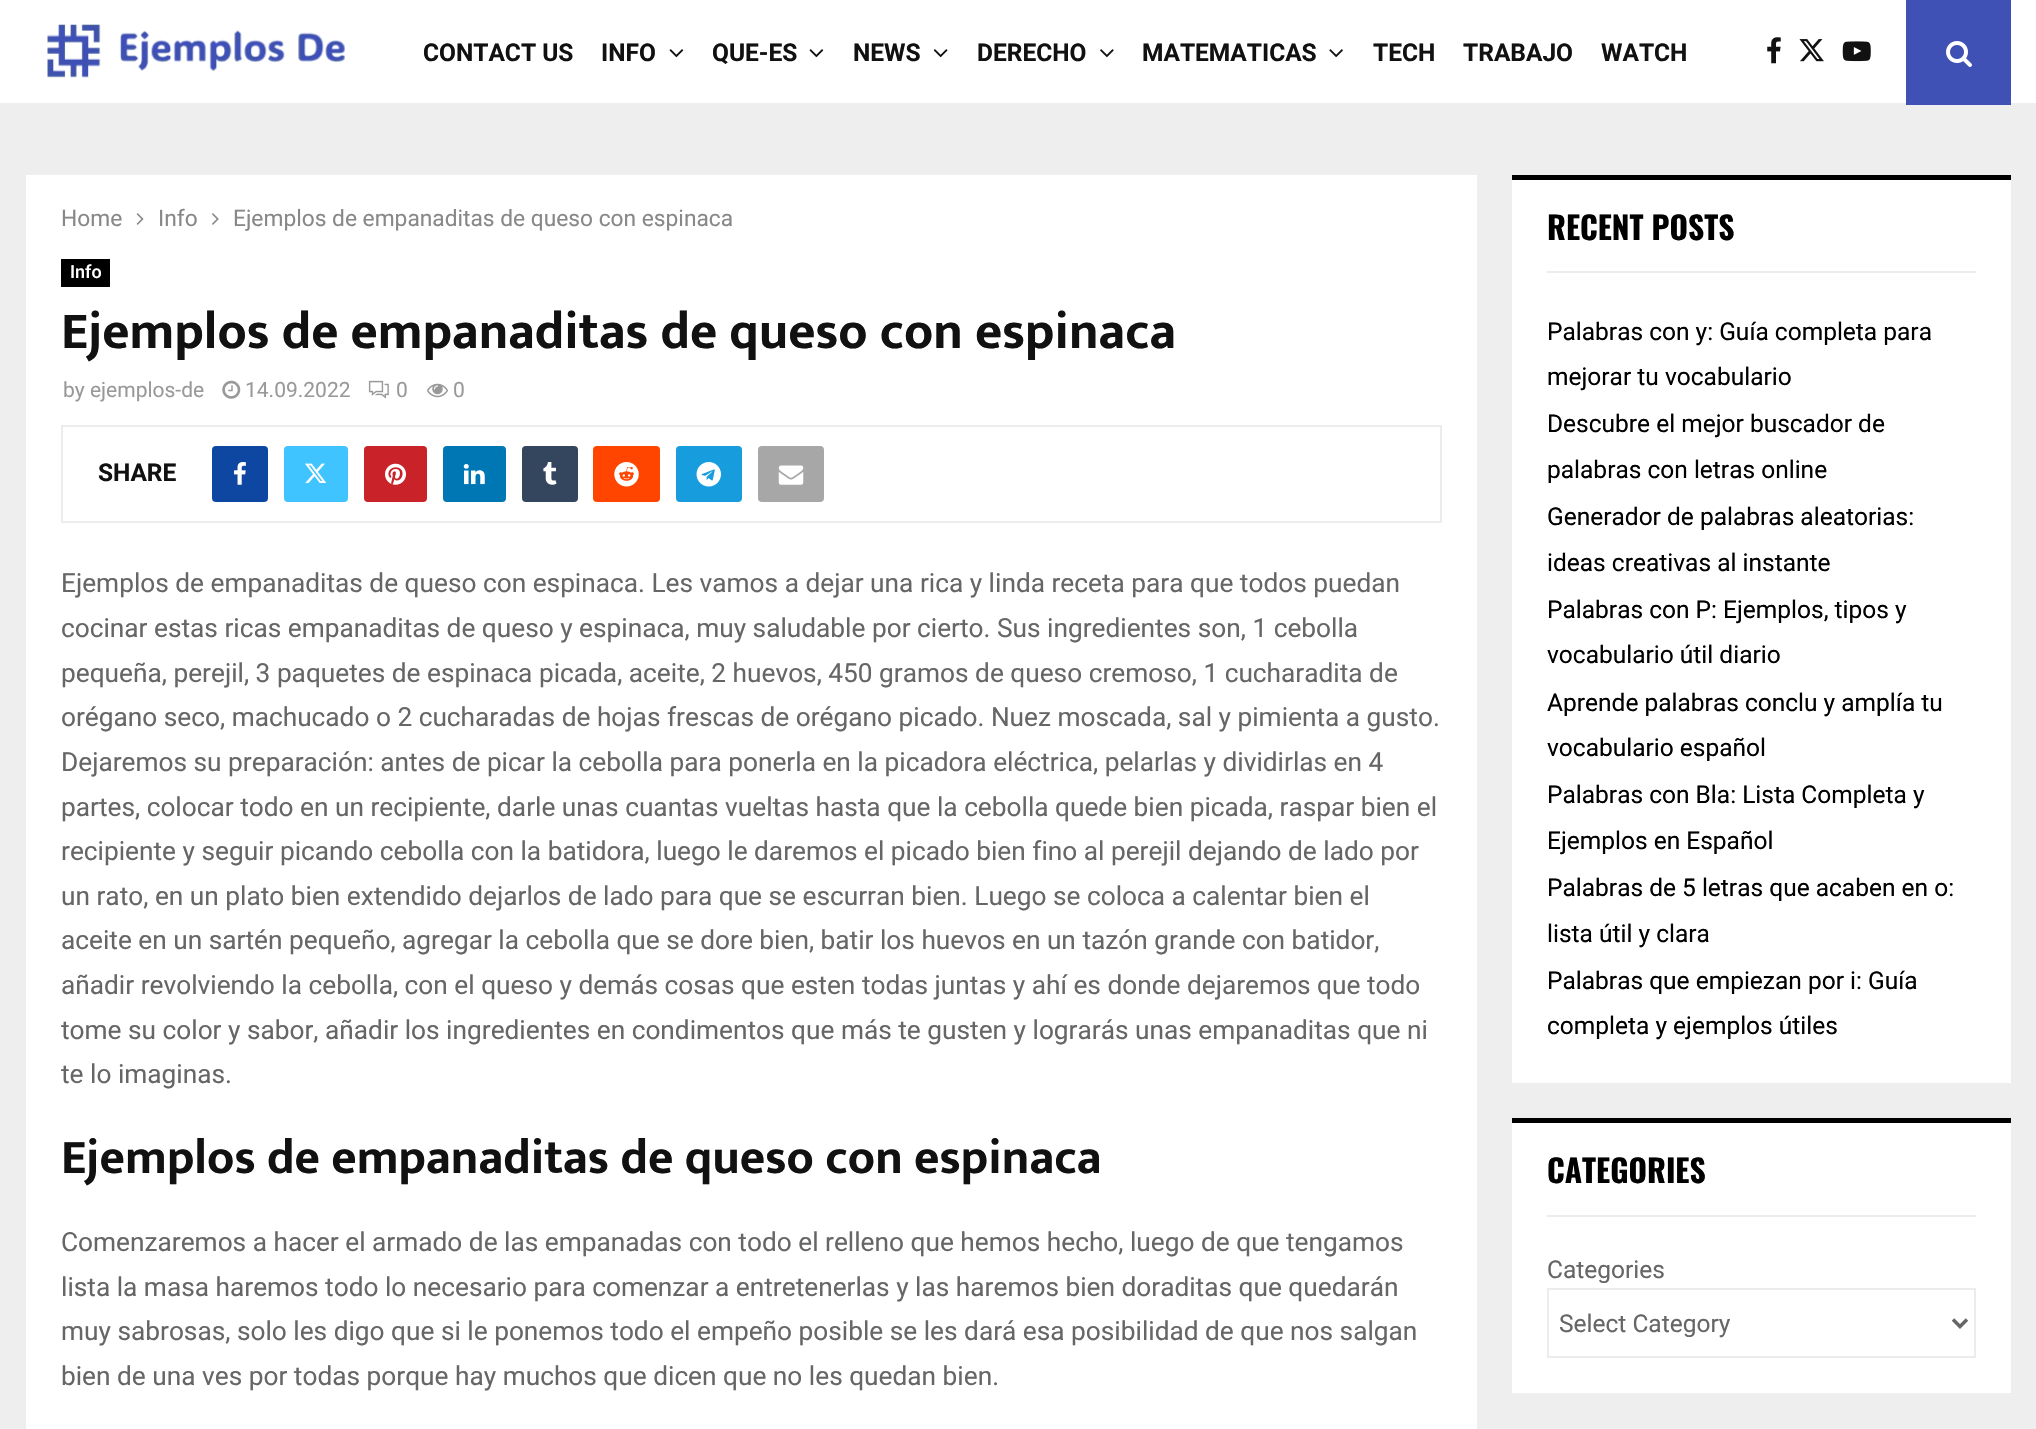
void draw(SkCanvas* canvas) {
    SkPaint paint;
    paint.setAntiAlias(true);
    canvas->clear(0xFFEEEEEE);
    paint.setColor(0xFFFFFFFF);
    canvas->drawRect(SkRect::MakeXYWH(0, 0, 2036, 103), paint);
    canvas->drawImageRect(SkImages::DeferredFromEncodedData(SkData::MakeFromFileName("img1.png")), SkRect::MakeXYWH(47, 24, 298, 54), SkSamplingOptions());
    SkFont font1(fontMgr->matchFamilyStyle("Roboto", SkFontStyle::Bold()), 24.5f);
    font1.setSubpixel(true);
    paint.setColor(0xFF111111);
    canvas->drawString("CONTACT US", 423, 61, font1, paint);
    canvas->drawString("INFO", 601, 61, font1, paint);
    canvas->drawImageRect(SkImages::DeferredFromEncodedData(SkData::MakeFromFileName("img2.png")), SkRect::MakeXYWH(669, 49, 15, 9), SkSamplingOptions());
    canvas->drawString("QUE-ES", 712, 61, font1, paint);
    canvas->drawImageRect(SkImages::DeferredFromEncodedData(SkData::MakeFromFileName("img2.png")), SkRect::MakeXYWH(809, 49, 15, 9), SkSamplingOptions());
    canvas->drawString("NEWS", 853, 61, font1, paint);
    canvas->drawImageRect(SkImages::DeferredFromEncodedData(SkData::MakeFromFileName("img3.png")), SkRect::MakeXYWH(933, 49, 15, 9), SkSamplingOptions());
    canvas->drawString("DERECHO", 977, 61, font1, paint);
    canvas->drawImageRect(SkImages::DeferredFromEncodedData(SkData::MakeFromFileName("img4.png")), SkRect::MakeXYWH(1100, 49, 14, 9), SkSamplingOptions());
    canvas->drawString("MATEMATICAS", 1142, 61, font1, paint);
    canvas->drawImageRect(SkImages::DeferredFromEncodedData(SkData::MakeFromFileName("img5.png")), SkRect::MakeXYWH(1329, 49, 14, 9), SkSamplingOptions());
    canvas->drawString("TECH", 1373, 61, font1, paint);
    canvas->drawString("TRABAJO", 1463, 61, font1, paint);
    canvas->drawString("WATCH", 1601, 61, font1, paint);
    canvas->drawImageRect(SkImages::DeferredFromEncodedData(SkData::MakeFromFileName("img6.png")), SkRect::MakeXYWH(1767, 37, 14, 27), SkSamplingOptions());
    canvas->drawImageRect(SkImages::DeferredFromEncodedData(SkData::MakeFromFileName("img7.png")), SkRect::MakeXYWH(1799, 39, 25, 23), SkSamplingOptions());
    canvas->drawImageRect(SkImages::DeferredFromEncodedData(SkData::MakeFromFileName("img8.png")), SkRect::MakeXYWH(1842, 41, 29, 21), SkSamplingOptions());
    paint.setColor(0xFF3F51B5);
    canvas->drawRect(SkRect::MakeXYWH(1906, 0, 105, 105), paint);
    canvas->drawImageRect(SkImages::DeferredFromEncodedData(SkData::MakeFromFileName("img9.png")), SkRect::MakeXYWH(1946, 41, 26, 26), SkSamplingOptions());
    paint.setColor(0xFFFFFFFF);
    canvas->drawRect(SkRect::MakeXYWH(26, 175, 1451, 1254), paint);
    SkFont font2(fontMgr->matchFamilyStyle("Roboto", SkFontStyle::Normal()), 22.75f);
    font2.setSubpixel(true);
    paint.setColor(0xFF888888);
    canvas->drawString("Home", 61, 226, font2, paint);
    canvas->drawImageRect(SkImages::DeferredFromEncodedData(SkData::MakeFromFileName("img10.png")), SkRect::MakeXYWH(136, 213, 8, 12), SkSamplingOptions());
    canvas->drawString("Info", 158, 226, font2, paint);
    canvas->drawImageRect(SkImages::DeferredFromEncodedData(SkData::MakeFromFileName("img11.png")), SkRect::MakeXYWH(212, 213, 7, 12), SkSamplingOptions());
    canvas->drawString("Ejemplos de empanaditas de queso con espinaca", 233, 226, font2, paint);
    paint.setColor(0xFF000000);
    canvas->drawRect(SkRect::MakeXYWH(61, 259, 49, 28), paint);
    SkFont font3(fontMgr->matchFamilyStyle("Roboto", SkFontStyle(500, SkFontStyle::kNormal_Width, SkFontStyle::kUpright_Slant)), 18);
    font3.setSubpixel(true);
    paint.setColor(0xFFFFFFFF);
    canvas->drawString("Info", 70, 278, font3, paint);
    SkFont font4(fontMgr->matchFamilyStyle("Mukta Vaani", SkFontStyle::Bold()), 52.5f);
    font4.setSubpixel(true);
    paint.setColor(0xFF111111);
    canvas->drawString("Ejemplos de empanaditas de queso con espinaca", 61, 348, font4, paint);
    SkFont font5(fontMgr->matchFamilyStyle("Roboto", SkFontStyle::Normal()), 21);
    font5.setSubpixel(true);
    paint.setColor(0xFF999999);
    canvas->drawString("by ejemplos-de", 63, 397, font5, paint);
    canvas->drawImageRect(SkImages::DeferredFromEncodedData(SkData::MakeFromFileName("img12.png")), SkRect::MakeXYWH(222, 380, 19, 19), SkSamplingOptions());
    canvas->drawString("14.09.2022", 245, 397, font5, paint);
    canvas->drawImageRect(SkImages::DeferredFromEncodedData(SkData::MakeFromFileName("img13.png")), SkRect::MakeXYWH(368, 380, 21, 19), SkSamplingOptions());
    canvas->drawString("0", 396, 397, font5, paint);
    canvas->drawImageRect(SkImages::DeferredFromEncodedData(SkData::MakeFromFileName("img14.png")), SkRect::MakeXYWH(427, 383, 21, 15), SkSamplingOptions());
    canvas->drawString("0", 453, 397, font5, paint);
    paint.setStyle(SkPaint::kStroke_Style);
    paint.setStrokeWidth(2);
    paint.setColor(0xFFECECEC);
    canvas->drawRect(SkRect::MakeXYWH(62, 426, 1379, 96), paint);
    paint.setStyle(SkPaint::kFill_Style);
    paint.setColor(0xFF111111);
    canvas->drawString("SHARE", 98, 481, font1, paint);
    paint.setColor(0xFF0D47A1);
    canvas->drawRoundRect(SkRect::MakeXYWH(212, 446, 56, 56), 4, 4, paint);
    canvas->drawImageRect(SkImages::DeferredFromEncodedData(SkData::MakeFromFileName("img15.png")), SkRect::MakeXYWH(234, 462, 12, 23), SkSamplingOptions());
    paint.setColor(0xFF40C4FF);
    canvas->drawRoundRect(SkRect::MakeXYWH(284, 446, 64, 56), 4, 4, paint);
    canvas->drawImageRect(SkImages::DeferredFromEncodedData(SkData::MakeFromFileName("img16.png")), SkRect::MakeXYWH(305, 463, 22, 20), SkSamplingOptions());
    paint.setColor(0xFFC92228);
    canvas->drawRoundRect(SkRect::MakeXYWH(364, 446, 63, 56), 4, 4, paint);
    canvas->drawImageRect(SkImages::DeferredFromEncodedData(SkData::MakeFromFileName("img17.png")), SkRect::MakeXYWH(385, 463, 21, 22), SkSamplingOptions());
    paint.setColor(0xFF0077B5);
    canvas->drawRoundRect(SkRect::MakeXYWH(443, 446, 63, 56), 4, 4, paint);
    canvas->drawImageRect(SkImages::DeferredFromEncodedData(SkData::MakeFromFileName("img18.png")), SkRect::MakeXYWH(463, 464, 22, 21), SkSamplingOptions());
    paint.setColor(0xFF34465D);
    canvas->drawRoundRect(SkRect::MakeXYWH(522, 446, 56, 56), 4, 4, paint);
    canvas->drawImageRect(SkImages::DeferredFromEncodedData(SkData::MakeFromFileName("img19.png")), SkRect::MakeXYWH(543, 462, 14, 23), SkSamplingOptions());
    paint.setColor(0xFFFF4500);
    canvas->drawRoundRect(SkRect::MakeXYWH(593, 446, 67, 56), 4, 4, paint);
    canvas->drawImageRect(SkImages::DeferredFromEncodedData(SkData::MakeFromFileName("img20.png")), SkRect::MakeXYWH(614, 462, 25, 25), SkSamplingOptions());
    paint.setColor(0xFF179CDE);
    canvas->drawRoundRect(SkRect::MakeXYWH(676, 446, 66, 56), 4, 4, paint);
    canvas->drawImageRect(SkImages::DeferredFromEncodedData(SkData::MakeFromFileName("img21.png")), SkRect::MakeXYWH(696, 462, 25, 25), SkSamplingOptions());
    paint.setColor(0xFFA7A7A7);
    canvas->drawRoundRect(SkRect::MakeXYWH(758, 446, 66, 56), 4, 4, paint);
    canvas->drawImageRect(SkImages::DeferredFromEncodedData(SkData::MakeFromFileName("img22.png")), SkRect::MakeXYWH(778, 465, 26, 20), SkSamplingOptions());
    SkFont font6(fontMgr->matchFamilyStyle("Roboto", SkFontStyle::Normal()), 26.25f);
    font6.setSubpixel(true);
    paint.setColor(0xFF666666);
    canvas->drawString("Ejemplos de empanaditas de queso con espinaca. Les vamos a dejar una rica y linda receta para que todos puedan", 61, 592, font6, paint);
    canvas->drawString("cocinar estas ricas empanaditas de queso y espinaca, muy saludable por cierto. Sus ingredientes son, 1 cebolla", 61, 637, font6, paint);
    canvas->drawString("pequeña, perejil, 3 paquetes de espinaca picada, aceite, 2 huevos, 450 gramos de queso cremoso, 1 cucharadita de", 61, 682, font6, paint);
    canvas->drawString("orégano seco, machucado o 2 cucharadas de hojas frescas de orégano picado. Nuez moscada, sal y pimienta a gusto.", 61, 726, font6, paint);
    canvas->drawString("Dejaremos su preparación: antes de picar la cebolla para ponerla en la picadora eléctrica, pelarlas y dividirlas en 4", 61, 771, font6, paint);
    canvas->drawString("partes, colocar todo en un recipiente, darle unas cuantas vueltas hasta que la cebolla quede bien picada, raspar bien el", 61, 816, font6, paint);
    canvas->drawString("recipiente y seguir picando cebolla con la batidora, luego le daremos el picado bien fino al perejil dejando de lado por", 61, 860, font6, paint);
    canvas->drawString("un rato, en un plato bien extendido dejarlos de lado para que se escurran bien. Luego se coloca a calentar bien el", 61, 905, font6, paint);
    canvas->drawString("aceite en un sartén pequeño, agregar la cebolla que se dore bien, batir los huevos en un tazón grande con batidor,", 61, 949, font6, paint);
    canvas->drawString("añadir revolviendo la cebolla, con el queso y demás cosas que esten todas juntas y ahí es donde dejaremos que todo", 61, 994, font6, paint);
    canvas->drawString("tome su color y sabor, añadir los ingredientes en condimentos que más te gusten y lograrás unas empanaditas que ni", 61, 1039, font6, paint);
    canvas->drawString("te lo imaginas.", 61, 1083, font6, paint);
    SkFont font7(fontMgr->matchFamilyStyle("Mukta Vaani", SkFontStyle::Bold()), 49);
    font7.setSubpixel(true);
    paint.setColor(0xFF111111);
    canvas->drawString("Ejemplos de empanaditas de queso con espinaca", 61, 1173, font7, paint);
    paint.setColor(0xFF666666);
    canvas->drawString("Comenzaremos a hacer el armado de las empanadas con todo el relleno que hemos hecho, luego de que tengamos", 61, 1251, font6, paint);
    canvas->drawString("lista la masa haremos todo lo necesario para comenzar a entretenerlas y las haremos bien doraditas que quedarán", 61, 1296, font6, paint);
    canvas->drawString("muy sabrosas, solo les digo que si le ponemos todo el empeño posible se les dará esa posibilidad de que nos salgan", 61, 1340, font6, paint);
    canvas->drawString("bien de una ves por todas porque hay muchos que dicen que no les quedan bien.", 61, 1385, font6, paint);
    paint.setColor(0xFFFFFFFF);
    canvas->drawRect(SkRect::MakeXYWH(1512, 180, 499, 903), paint);
    paint.setColor(0xFFECECEC);
    canvas->drawRect(SkRect::MakeXYWH(1547, 271, 429, 2), paint);
    paint.setColor(0xFF000000);
    canvas->drawRect(SkRect::MakeXYWH(1512, 175, 499, 5), paint);
    SkFont font8(fontMgr->matchFamilyStyle("Oswald", SkFontStyle::Bold()), 31.5f);
    font8.setSubpixel(true);
    canvas->drawString("RECENT POSTS", 1547, 240, font8, paint);
    SkFont font9(fontMgr->matchFamilyStyle("Roboto", SkFontStyle::Normal()), 24.5f);
    font9.setSubpixel(true);
    canvas->drawString("Palabras con y: Guía completa para", 1547, 340, font9, paint);
    canvas->drawString("mejorar tu vocabulario", 1547, 385, font9, paint);
    canvas->drawString("Descubre el mejor buscador de", 1547, 432, font9, paint);
    canvas->drawString("palabras con letras online", 1547, 478, font9, paint);
    canvas->drawString("Generador de palabras aleatorias:", 1547, 525, font9, paint);
    canvas->drawString("ideas creativas al instante", 1547, 571, font9, paint);
    canvas->drawString("Palabras con P: Ejemplos, tipos y", 1547, 618, font9, paint);
    canvas->drawString("vocabulario útil diario", 1547, 663, font9, paint);
    canvas->drawString("Aprende palabras con clu y amplía tu", 1547, 711, font9, paint);
    canvas->drawString("vocabulario español", 1547, 756, font9, paint);
    canvas->drawString("Palabras con Bla: Lista Completa y", 1547, 803, font9, paint);
    canvas->drawString("Ejemplos en Español", 1547, 849, font9, paint);
    canvas->drawString("Palabras de 5 letras que acaben en o:", 1547, 896, font9, paint);
    canvas->drawString("lista útil y clara", 1547, 942, font9, paint);
    canvas->drawString("Palabras que empiezan por i: Guía", 1547, 989, font9, paint);
    canvas->drawString("completa y ejemplos útiles", 1547, 1034, font9, paint);
    paint.setColor(0xFFFFFFFF);
    canvas->drawRect(SkRect::MakeXYWH(1512, 1123, 499, 270), paint);
    paint.setColor(0xFFECECEC);
    canvas->drawRect(SkRect::MakeXYWH(1547, 1215, 429, 2), paint);
    paint.setColor(0xFF000000);
    canvas->drawRect(SkRect::MakeXYWH(1512, 1118, 499, 5), paint);
    canvas->drawString("CATEGORIES", 1547, 1183, font8, paint);
    paint.setColor(0xFF666666);
    canvas->drawString("Categories", 1547, 1278, font9, paint);
    paint.setStyle(SkPaint::kStroke_Style);
    paint.setColor(0xFFECECEC);
    canvas->drawRect(SkRect::MakeXYWH(1548, 1289, 427, 68), paint);
    paint.setStrokeWidth(3.5f);
    paint.setColor(0xFF666666);
    canvas->drawPath(SkPathBuilder().moveTo(1953, 1319.5f).lineTo(1960, 1326.5f).lineTo(1967, 1319.5f).detach(), paint);
    paint.setStyle(SkPaint::kFill_Style);
    canvas->drawString("Select Category", 1559, 1332, font9, paint);
}
